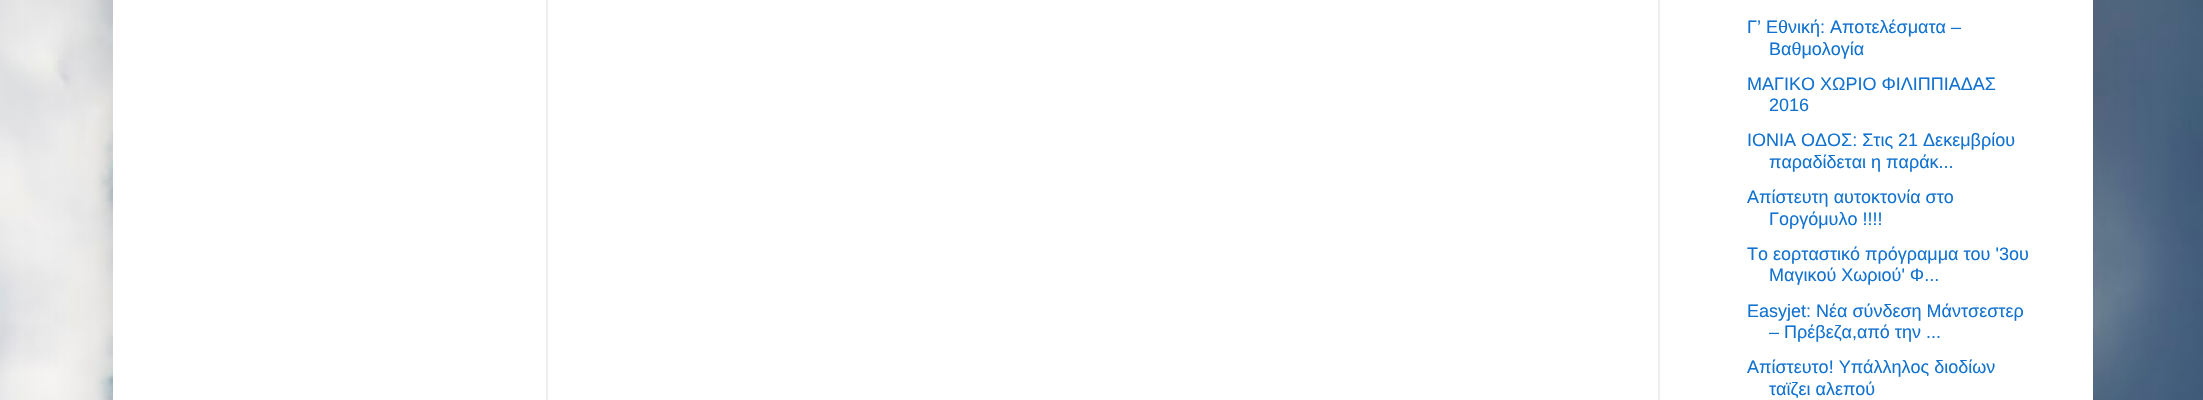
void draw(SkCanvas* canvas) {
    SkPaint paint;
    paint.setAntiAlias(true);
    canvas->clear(0xFFFFFFFF);
    canvas->drawImageRect(SkImages::DeferredFromEncodedData(SkData::MakeFromFileName("img1.png")), SkRect::MakeXYWH(0, 0, 2203, 400), SkSamplingOptions());
    paint.setColor(0x26000000);
    paint.setMaskFilter(SkMaskFilter::MakeBlur(kNormal_SkBlurStyle, 30));
    canvas->drawRect(SkRect::MakeXYWH(113, -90, 1980, 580), paint);
    paint.setMaskFilter(nullptr);
    paint.setColor(0xFFFFFFFF);
    canvas->drawRect(SkRect::MakeXYWH(113, 0, 1980, 400), paint);
    paint.setColor(0xFFEEEEEE);
    canvas->drawRect(SkRect::MakeXYWH(546, 0, 2, 400), paint);
    canvas->drawRect(SkRect::MakeXYWH(1658, 0, 2, 400), paint);
    SkFont font1(fontMgr->matchFamilyStyle("Liberation Sans", SkFontStyle::Normal()), 18);
    font1.setSubpixel(true);
    paint.setColor(0xFF1172D0);
    canvas->drawString("Γ’ Εθνική: Αποτελέσματα –", 1747, 33, font1, paint);
    canvas->drawString("Βαθμολογία", 1769, 55, font1, paint);
    canvas->drawString("ΜΑΓΙΚΟ ΧΩΡΙΟ ΦΙΛΙΠΠΙΑΔΑΣ", 1747, 90, font1, paint);
    canvas->drawString("2016", 1769, 111, font1, paint);
    canvas->drawString("ΙΟΝΙΑ ΟΔΟΣ: Στις 21 Δεκεμβρίου", 1747, 146, font1, paint);
    canvas->drawString("παραδίδεται η παράκ...", 1769, 168, font1, paint);
    canvas->drawString("Απίστευτη αυτοκτονία στο", 1747, 203, font1, paint);
    canvas->drawString("Γοργόμυλο !!!!", 1769, 225, font1, paint);
    canvas->drawString("Το εορταστικό πρόγραμμα του '3ου", 1747, 260, font1, paint);
    canvas->drawString("Μαγικού Χωριού' Φ...", 1769, 281, font1, paint);
    canvas->drawString("Εasyjet: Νέα σύνδεση Μάντσεστερ", 1747, 317, font1, paint);
    canvas->drawString("– Πρέβεζα,από την ...", 1769, 338, font1, paint);
    canvas->drawString("Απίστευτο! Υπάλληλος διοδίων", 1747, 373, font1, paint);
    canvas->drawString("ταϊζει αλεπού", 1769, 395, font1, paint);
}
